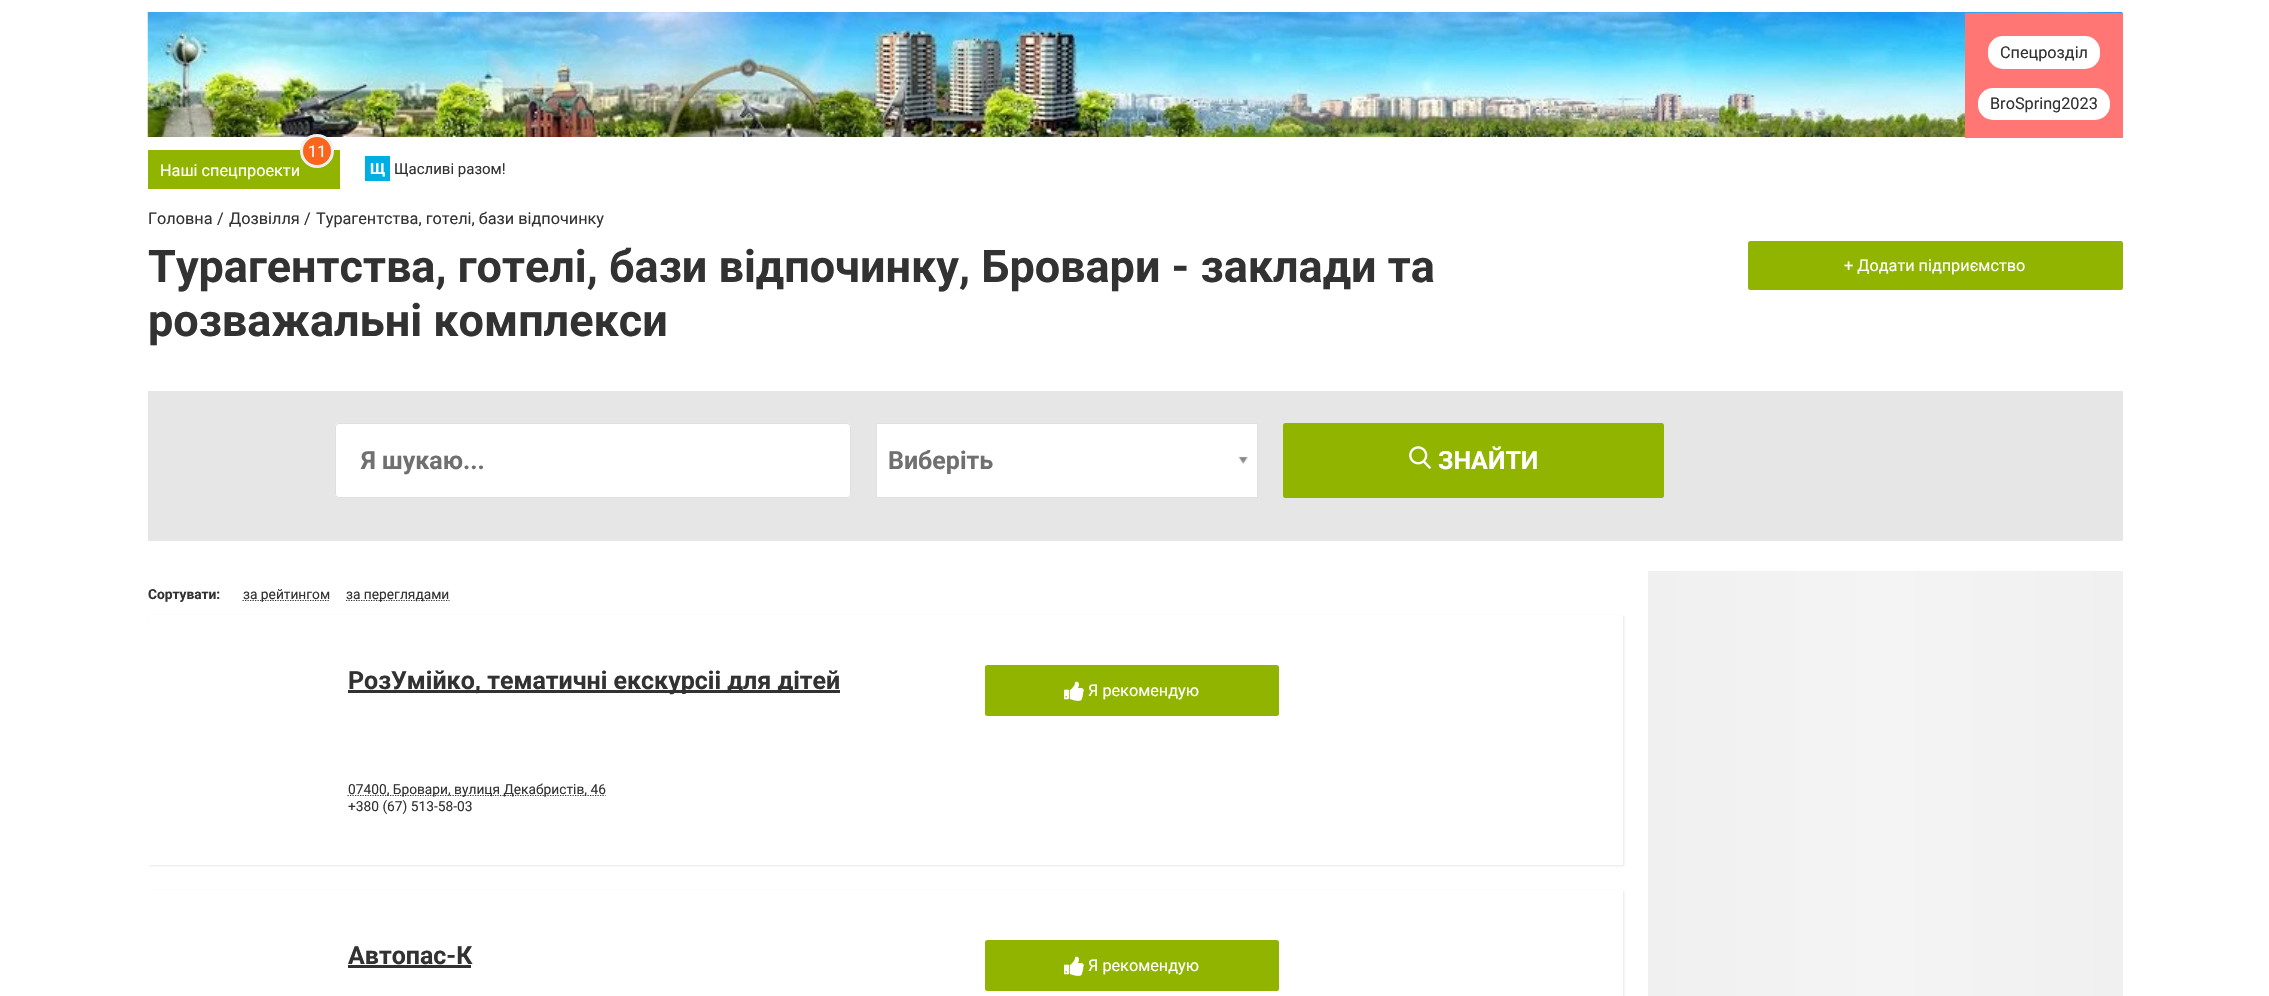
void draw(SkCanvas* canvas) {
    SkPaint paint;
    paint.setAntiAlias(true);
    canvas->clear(0xFFFFFFFF);
    canvas->drawImageRect(SkImages::DeferredFromEncodedData(SkData::MakeFromFileName("img1.png")), SkRect::MakeXYWH(147, 12, 1976, 125), SkSamplingOptions());
    paint.setColor(0xFFFF7675);
    canvas->drawRect(SkRect::MakeXYWH(1965, 13, 158, 125), paint);
    paint.setColor(0xFFFFFFFF);
    canvas->drawRoundRect(SkRect::MakeXYWH(1988, 36, 112, 33), 15, 15, paint);
    SkFont font1(fontMgr->matchFamilyStyle("Roboto", SkFontStyle::Normal()), 16.25f);
    font1.setSubpixel(true);
    paint.setColor(0xFF323232);
    canvas->drawString("Спецрозділ", 2000, 58, font1, paint);
    paint.setColor(0xFFFFFFFF);
    canvas->drawRoundRect(SkRect::MakeXYWH(1978, 88, 132, 32), 15, 15, paint);
    paint.setColor(0xFF323232);
    canvas->drawString("BroSpring2023", 1990, 109, font1, paint);
    paint.setColor(0xFF90B400);
    canvas->drawRect(SkRect::MakeXYWH(148, 150, 192, 39), paint);
    paint.setColor(0xFFFB661C);
    canvas->drawCircle(317, 151, 15.5f, paint);
    paint.setStyle(SkPaint::kStroke_Style);
    paint.setStrokeWidth(3);
    paint.setColor(0xFFF0F0F0);
    canvas->drawCircle(317, 151, 15.5f, paint);
    paint.setStyle(SkPaint::kFill_Style);
    paint.setColor(0xFFFFFFFF);
    canvas->drawString("11", 308, 157, font1, paint);
    canvas->drawString("Наші спецпроекти", 160, 176, font1, paint);
    paint.setColor(0xFF00AFE1);
    canvas->drawRect(SkRect::MakeXYWH(365, 156, 25, 25), paint);
    SkFont font2(fontMgr->matchFamilyStyle("Roboto", SkFontStyle::Bold()), 15);
    font2.setSubpixel(true);
    paint.setColor(0xFFFFFFFF);
    canvas->drawString("Щ", 370, 174, font2, paint);
    SkFont font3(fontMgr->matchFamilyStyle("Roboto", SkFontStyle::Normal()), 15);
    font3.setSubpixel(true);
    paint.setColor(0xFF323232);
    canvas->drawString("Щасливі разом!", 394, 174, font3, paint);
    canvas->drawString("Головна", 148, 224, font1, paint);
    canvas->drawString("/", 217, 224, font1, paint);
    canvas->drawString("Дозвілля", 229, 224, font1, paint);
    canvas->drawString("/", 304, 224, font1, paint);
    canvas->drawString("Турагентства, готелі, бази відпочинку", 316, 224, font1, paint);
    SkFont font4(fontMgr->matchFamilyStyle("Roboto", SkFontStyle::Bold()), 45);
    font4.setSubpixel(true);
    canvas->drawString("Турагентства, готелі, бази відпочинку, Бровари - заклади та", 148, 282, font4, paint);
    canvas->drawString("розважальні комплекси", 148, 336, font4, paint);
    paint.setColor(0xFF90B400);
    canvas->drawRoundRect(SkRect::MakeXYWH(1748, 241, 375, 49), 2.5f, 2.5f, paint);
    paint.setColor(0xFFFFFFFF);
    canvas->drawString("+ Додати підприємство", 1844, 271, font1, paint);
    paint.setColor(0xFFE6E6E6);
    canvas->drawRect(SkRect::MakeXYWH(148, 391, 1975, 150), paint);
    paint.setColor(0xFFFFFFFF);
    canvas->drawRoundRect(SkRect::MakeXYWH(335, 423, 516, 75), 4, 4, paint);
    paint.setStyle(SkPaint::kStroke_Style);
    paint.setStrokeWidth(1);
    paint.setColor(0x26323232);
    canvas->drawRoundRect(SkRect::MakeXYWH(335.5f, 423.5f, 515, 74), 3.5f, 3.5f, paint);
    SkFont font5(fontMgr->matchFamilyStyle("Roboto", SkFontStyle::Bold()), 25);
    font5.setSubpixel(true);
    paint.setStyle(SkPaint::kFill_Style);
    paint.setColor(0xFF707070);
    canvas->drawString("Я шукаю...", 361, 469, font5, paint);
    paint.setColor(0xFFFFFFFF);
    canvas->drawRect(SkRect::MakeXYWH(876.5f, 423.5f, 381, 74), paint);
    paint.setStyle(SkPaint::kStroke_Style);
    paint.setColor(0xFFE0E0E0);
    canvas->drawRect(SkRect::MakeXYWH(876.5f, 423.5f, 381, 74), paint);
    paint.setStyle(SkPaint::kFill_Style);
    paint.setColor(0xFF707070);
    canvas->drawString("Виберіть", 888, 469, font5, paint);
    canvas->drawImageRect(SkImages::DeferredFromEncodedData(SkData::MakeFromFileName("img2.png")), SkRect::MakeXYWH(1238, 456, 10, 8), SkSamplingOptions());
    paint.setColor(0xFF90B400);
    canvas->drawRoundRect(SkRect::MakeXYWH(1283, 423, 381, 75), 2.5f, 2.5f, paint);
    canvas->drawImageRect(SkImages::DeferredFromEncodedData(SkData::MakeFromFileName("img3.png")), SkRect::MakeXYWH(1409, 446, 22, 23), SkSamplingOptions());
    paint.setColor(0xFFFFFFFF);
    canvas->drawString("ЗНАЙТИ", 1438, 469, font5, paint);
    SkFont font6(fontMgr->matchFamilyStyle("Roboto", SkFontStyle::Bold()), 13.75f);
    font6.setSubpixel(true);
    paint.setColor(0xFF323232);
    canvas->drawString("Сортувати:", 148, 599, font6, paint);
    paint.setStyle(SkPaint::kStroke_Style);
    paint.setStrokeWidth(1.2f);
    paint.setPathEffect(SkDashPathEffect::Make({{1.25f, 1.25f}}, 0));
    canvas->drawPath(SkPathBuilder().moveTo(242.5f, 600.5f).lineTo(329.5f, 600.5f).detach(), paint);
    paint.setPathEffect(nullptr);
    SkFont font7(fontMgr->matchFamilyStyle("Roboto", SkFontStyle::Normal()), 13.75f);
    font7.setSubpixel(true);
    paint.setStyle(SkPaint::kFill_Style);
    canvas->drawString("за рейтингом", 243, 599, font7, paint);
    paint.setStyle(SkPaint::kStroke_Style);
    paint.setPathEffect(SkDashPathEffect::Make({{1.25f, 1.25f}}, 0));
    canvas->drawPath(SkPathBuilder().moveTo(346, 600.5f).lineTo(449.5f, 600.5f).detach(), paint);
    paint.setPathEffect(nullptr);
    paint.setStyle(SkPaint::kFill_Style);
    canvas->drawString("за переглядами", 346, 599, font7, paint);
    paint.setColor(0x265A5A5A);
    paint.setMaskFilter(SkMaskFilter::MakeBlur(kNormal_SkBlurStyle, 1));
    canvas->drawRect(SkRect::MakeXYWH(149, 616, 1475, 250), paint);
    paint.setMaskFilter(nullptr);
    paint.setColor(0xFFFFFFFF);
    canvas->drawRect(SkRect::MakeXYWH(148, 615, 1475, 250), paint);
    paint.setColor(0xFF323232);
    canvas->drawRect(SkRect::MakeXYWH(348, 690, 492, 3), paint);
    canvas->drawString("РозУмійко, тематичні екскурсіі для дітей", 348, 689, font5, paint);
    paint.setStyle(SkPaint::kStroke_Style);
    paint.setPathEffect(SkDashPathEffect::Make({{1.25f, 1.25f}}, 0));
    canvas->drawPath(SkPathBuilder().moveTo(347.5f, 795.5f).lineTo(605.5f, 795.5f).detach(), paint);
    paint.setPathEffect(nullptr);
    paint.setStyle(SkPaint::kFill_Style);
    canvas->drawString("07400, Бровари, вулиця Декабристів, 46", 348, 794, font7, paint);
    canvas->drawString("+380 (67) 513-58-03", 348, 811, font7, paint);
    paint.setColor(0xFF90B400);
    canvas->drawRoundRect(SkRect::MakeXYWH(985, 665, 294, 51), 2.5f, 2.5f, paint);
    canvas->drawImageRect(SkImages::DeferredFromEncodedData(SkData::MakeFromFileName("img4.png")), SkRect::MakeXYWH(1064, 681, 20, 20), SkSamplingOptions());
    paint.setColor(0xFFFFFFFF);
    canvas->drawString("Я рекомендую", 1088, 696, font1, paint);
    paint.setColor(0x265A5A5A);
    paint.setMaskFilter(SkMaskFilter::MakeBlur(kNormal_SkBlurStyle, 1));
    canvas->drawRect(SkRect::MakeXYWH(149, 891, 1475, 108), paint);
    paint.setMaskFilter(nullptr);
    paint.setColor(0xFFFFFFFF);
    canvas->drawRect(SkRect::MakeXYWH(148, 890, 1475, 106), paint);
    paint.setColor(0xFF323232);
    canvas->drawString("Автопас-К", 348, 964, font5, paint);
    canvas->drawRect(SkRect::MakeXYWH(348, 965, 123, 3), paint);
    paint.setColor(0xFF90B400);
    canvas->drawRoundRect(SkRect::MakeXYWH(985, 940, 294, 51), 2.5f, 2.5f, paint);
    canvas->drawImageRect(SkImages::DeferredFromEncodedData(SkData::MakeFromFileName("img4.png")), SkRect::MakeXYWH(1064, 956, 20, 20), SkSamplingOptions());
    paint.setColor(0xFFFFFFFF);
    canvas->drawString("Я рекомендую", 1088, 971, font1, paint);
    {
        const SkColor colors[] = {0xFFF0F0F0, 0xFFF4F4F4, 0xFFF0F0F0};
        const float stops[] = {0, 0.5f, 1};
        const SkPoint ends[] = {{1648, 958}, {2123, 958}};
        paint.setShader(SkGradientShader::MakeLinear(ends, colors, stops, 3, SkTileMode::kClamp));
        paint.setAlpha(255);
    }
    canvas->drawRect(SkRect::MakeXYWH(1648, 571, 475, 425), paint);
}
